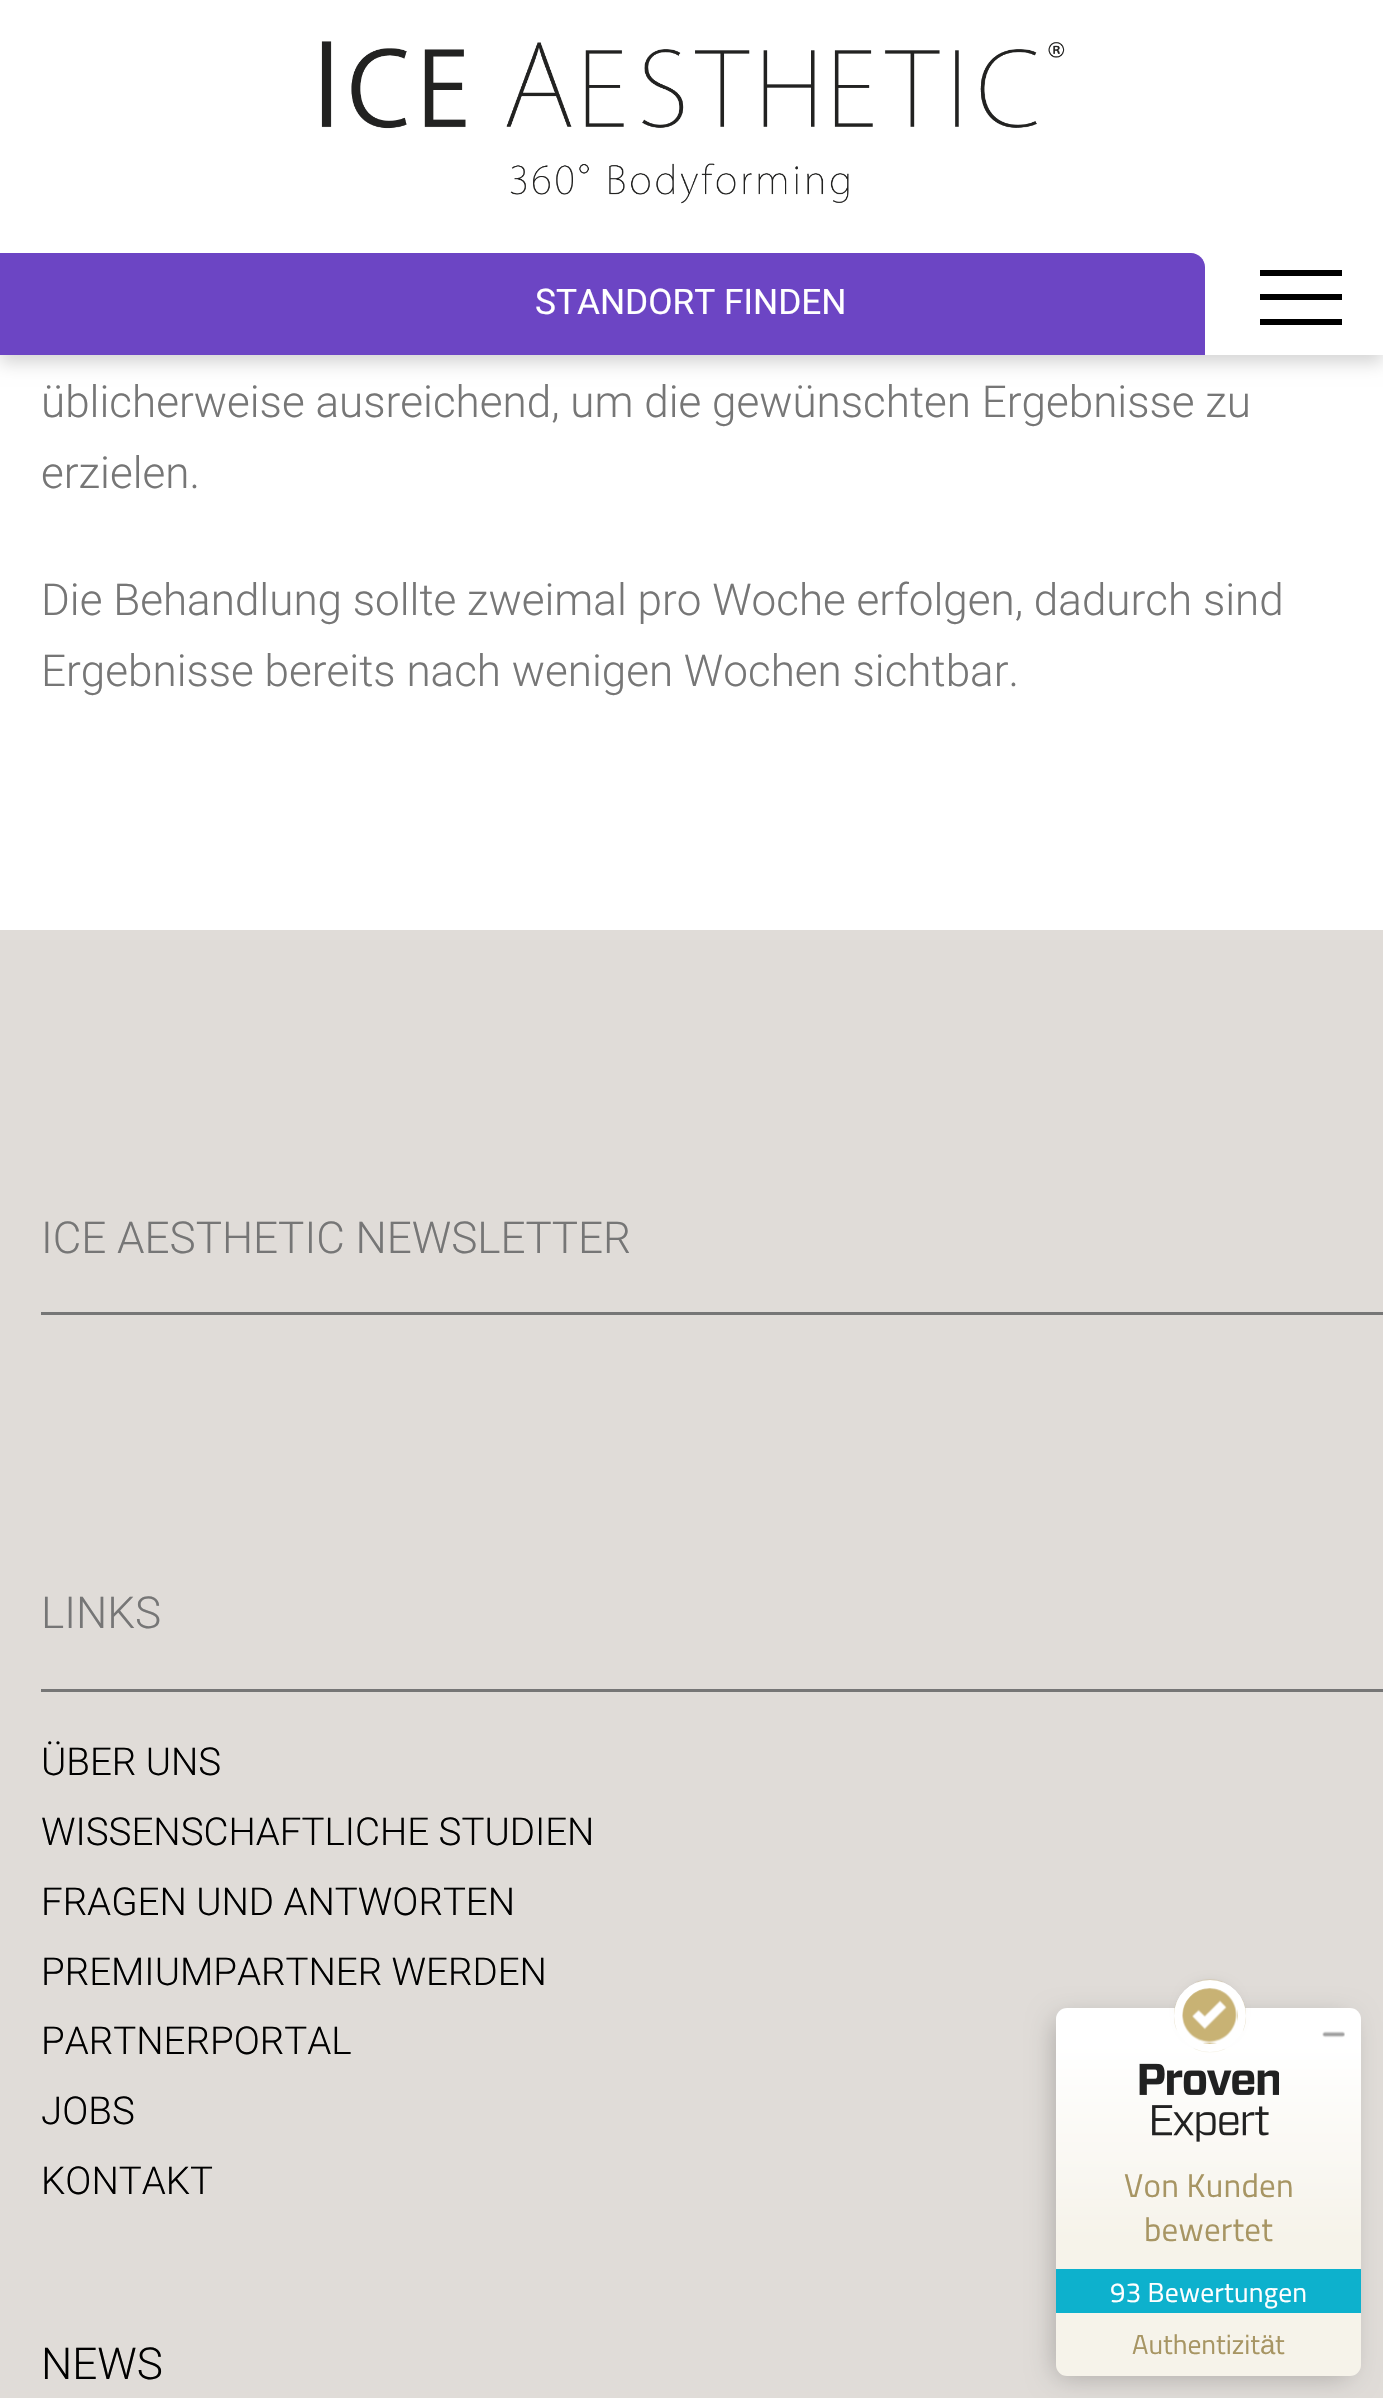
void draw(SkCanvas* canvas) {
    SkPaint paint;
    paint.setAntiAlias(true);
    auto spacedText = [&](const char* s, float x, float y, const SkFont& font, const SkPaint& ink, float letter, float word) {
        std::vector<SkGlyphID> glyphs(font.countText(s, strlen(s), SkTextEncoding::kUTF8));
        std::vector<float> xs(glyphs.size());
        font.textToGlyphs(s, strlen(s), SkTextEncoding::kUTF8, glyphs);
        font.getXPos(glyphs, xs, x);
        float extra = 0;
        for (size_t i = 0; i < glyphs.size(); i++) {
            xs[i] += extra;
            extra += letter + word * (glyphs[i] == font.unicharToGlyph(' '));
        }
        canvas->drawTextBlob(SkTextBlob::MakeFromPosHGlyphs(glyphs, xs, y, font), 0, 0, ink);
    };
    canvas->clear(0xFFFFFFFF);
    paint.setColor(0x29000000);
    paint.setMaskFilter(SkMaskFilter::MakeBlur(kNormal_SkBlurStyle, 8));
    canvas->drawRect(SkRect::MakeXYWH(0, 8, 1383, 355), paint);
    paint.setMaskFilter(nullptr);
    paint.setColor(0xFFFFFFFF);
    canvas->drawRect(SkRect::MakeXYWH(0, 0, 1383, 355), paint);
    canvas->drawImageRect(SkImages::DeferredFromEncodedData(SkData::MakeFromFileName("img1.png")), SkRect::MakeXYWH(321, 41, 744, 163), SkSamplingOptions());
    paint.setColor(0xFF6C45C4);
    canvas->drawRect(SkRect::MakeXYWH(0, 253, 41, 102), paint);
    canvas->drawPath(SkPathBuilder().moveTo(41, 253).lineTo(1191, 253).cubicTo(1198.5f, 253, 1205, 259.5f, 1205, 267).lineTo(1205, 355).lineTo(41, 355).close().detach(), paint);
    SkFont font1(fontMgr->matchFamilyStyle("Roboto", SkFontStyle::Normal()), 35.25f);
    font1.setSubpixel(true);
    paint.setColor(0xFFFFFFFF);
    canvas->drawString("STANDORT FINDEN", 535, 314, font1, paint);
    paint.setColor(0xFF000000);
    canvas->drawRect(SkRect::MakeXYWH(1260, 294, 82, 6), paint);
    canvas->drawRect(SkRect::MakeXYWH(1260, 270, 82, 6), paint);
    canvas->drawRect(SkRect::MakeXYWH(1260, 319, 82, 6), paint);
    SkFont font2(fontMgr->matchFamilyStyle("Roboto", SkFontStyle(300, SkFontStyle::kNormal_Width, SkFontStyle::kUpright_Slant)), 44);
    font2.setSubpixel(true);
    paint.setColor(0xFF767676);
    canvas->drawString("üblicherweise ausreichend, um die gewünschten Ergebnisse zu", 41, 417, font2, paint);
    canvas->drawString("erzielen.", 41, 488, font2, paint);
    canvas->drawString("Die Behandlung sollte zweimal pro Woche erfolgen, dadurch sind", 41, 615, font2, paint);
    canvas->drawString("Ergebnisse bereits nach wenigen Wochen sichtbar.", 41, 686, font2, paint);
    paint.setColor(0xFFE0DCD8);
    canvas->drawRect(SkRect::MakeXYWH(0, 930, 1383, 1468), paint);
    paint.setColor(0xFF767676);
    canvas->drawString("ICE AESTHETIC NEWSLETTER", 41, 1253, font2, paint);
    canvas->drawRect(SkRect::MakeXYWH(41, 1312, 1342, 3), paint);
    canvas->drawString("LINKS", 41, 1628, font2, paint);
    canvas->drawRect(SkRect::MakeXYWH(41, 1689, 1342, 3), paint);
    SkFont font3(fontMgr->matchFamilyStyle("Roboto", SkFontStyle(300, SkFontStyle::kNormal_Width, SkFontStyle::kUpright_Slant)), 38.5f);
    font3.setSubpixel(true);
    paint.setColor(0xFF000000);
    canvas->drawString("ÜBER UNS", 41, 1775, font3, paint);
    canvas->drawString("WISSENSCHAFTLICHE STUDIEN", 41, 1845, font3, paint);
    canvas->drawString("FRAGEN UND ANTWORTEN", 41, 1915, font3, paint);
    canvas->drawString("PREMIUMPARTNER WERDEN", 41, 1985, font3, paint);
    canvas->drawString("PARTNERPORTAL", 41, 2054, font3, paint);
    canvas->drawString("JOBS", 41, 2124, font3, paint);
    canvas->drawString("KONTAKT", 41, 2194, font3, paint);
    canvas->drawString("NEWS", 41, 2379, font2, paint);
    paint.setColor(0x40000000);
    paint.setMaskFilter(SkMaskFilter::MakeBlur(kNormal_SkBlurStyle, 14));
    canvas->drawRoundRect(SkRect::MakeXYWH(1056, 2019, 294, 357), 6, 6, paint);
    paint.setMaskFilter(nullptr);
    {
        const SkColor colors[] = {0xFFF6F3EA, 0xFFFFFFFF};
        const float stops[] = {0.37f, 0.9f};
        const SkPoint ends[] = {{1209, 2376}, {1209, 2008}};
        paint.setShader(SkGradientShader::MakeLinear(ends, colors, stops, 2, SkTileMode::kClamp));
        paint.setAlpha(255);
    }
    canvas->drawRoundRect(SkRect::MakeXYWH(1056, 2008, 305, 368), 11, 11, paint);
    canvas->drawImageRect(SkImages::DeferredFromEncodedData(SkData::MakeFromFileName("img2.png")), SkRect::MakeXYWH(1322, 2031, 23, 7), SkSamplingOptions());
    paint.setShader(nullptr);
    paint.setColor(0x40000000);
    paint.setMaskFilter(SkMaskFilter::MakeBlur(kNormal_SkBlurStyle, 7));
    canvas->drawRoundRect(SkRect::MakeXYWH(1185, 1986, 50, 49), 24.5f, 24.5f, paint);
    paint.setMaskFilter(nullptr);
    paint.setColor(0xFFFFFFFF);
    canvas->drawCircle(1210, 2016, 36, paint);
    canvas->drawImageRect(SkImages::DeferredFromEncodedData(SkData::MakeFromFileName("img3.png")), SkRect::MakeXYWH(1174, 1979, 72, 74), SkSamplingOptions());
    paint.setStyle(SkPaint::kStroke_Style);
    paint.setStrokeWidth(8);
    canvas->drawCircle(1210, 2016, 32, paint);
    canvas->drawImageRect(SkImages::DeferredFromEncodedData(SkData::MakeFromFileName("img4.png")), SkRect::MakeXYWH(1139, 2063, 140, 79), SkSamplingOptions());
    SkFont font4(fontMgr->matchFamilyStyle("Titillium Web", SkFontStyle::Normal()), 33);
    font4.setSubpixel(true);
    paint.setStyle(SkPaint::kFill_Style);
    paint.setColor(0xFFA79563);
    spacedText("Von Kunden", 1124, 2197, font4, paint, 0.25f, 0);
    spacedText("bewertet", 1144, 2241, font4, paint, 0.25f, 0);
    paint.setColor(0xFF0DB1CD);
    canvas->drawRect(SkRect::MakeXYWH(1056, 2269, 305, 44), paint);
    SkFont font5(fontMgr->matchFamilyStyle("Titillium Web", SkFontStyle::Normal()), 27.5f);
    font5.setSubpixel(true);
    paint.setColor(0xFFFFFFFF);
    spacedText("93 Bewertungen", 1110, 2302, font5, paint, 0.25f, 0);
    paint.setColor(0xFFA79563);
    canvas->drawString("Authentizit", 1132, 2354, font5, paint);
    SkFont font6(fontMgr->matchFamilyStyle("Liberation Sans", SkFontStyle::Normal()), 27.5f);
    font6.setSubpixel(true);
    canvas->drawString("ä", 1260, 2354, font6, paint);
    canvas->drawString("t", 1275, 2354, font5, paint);
}
